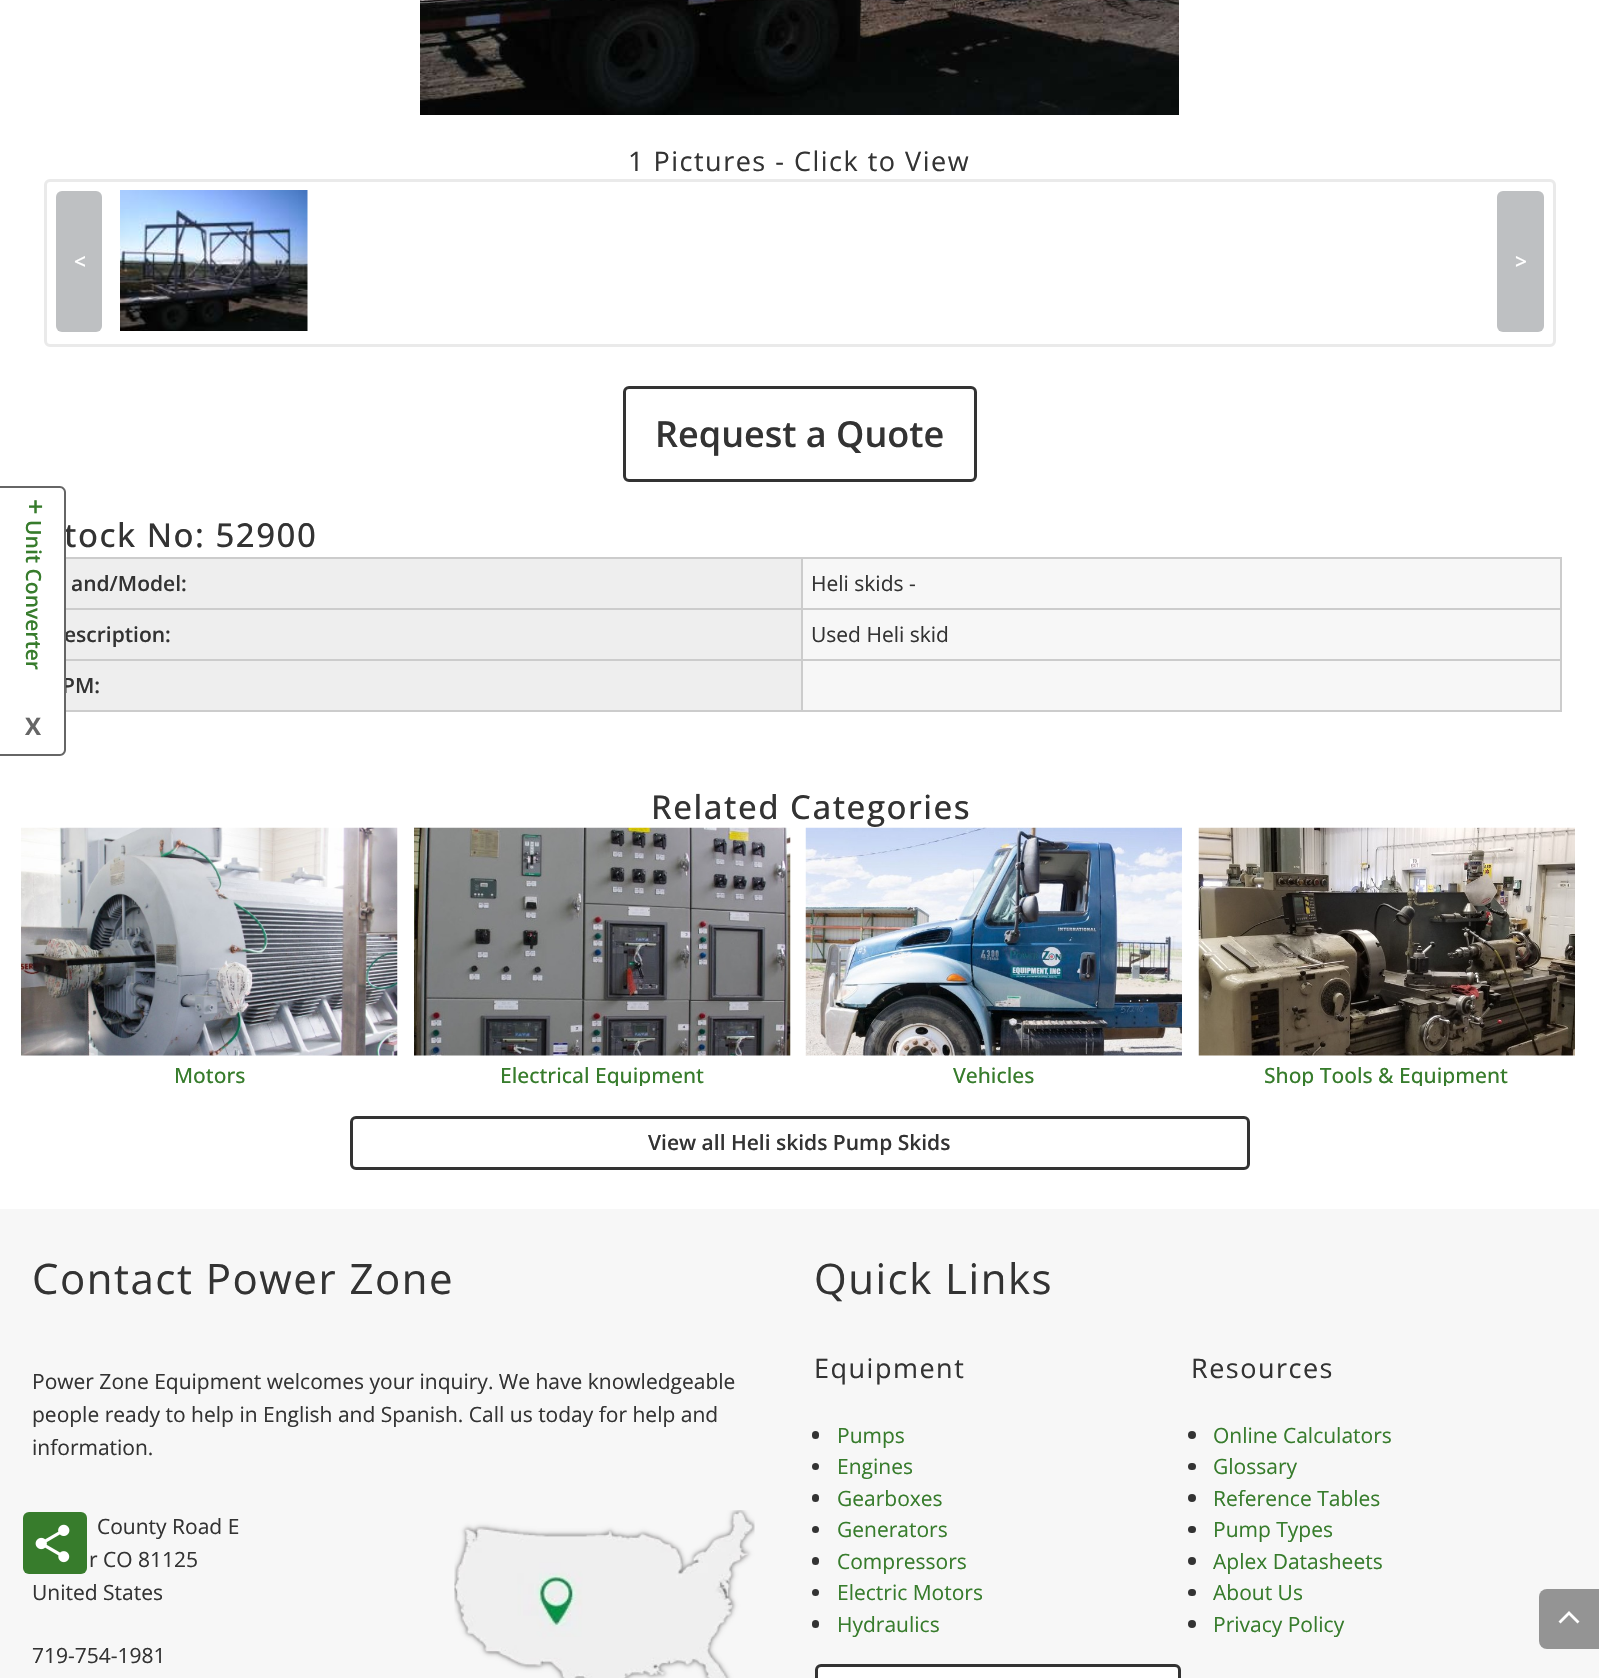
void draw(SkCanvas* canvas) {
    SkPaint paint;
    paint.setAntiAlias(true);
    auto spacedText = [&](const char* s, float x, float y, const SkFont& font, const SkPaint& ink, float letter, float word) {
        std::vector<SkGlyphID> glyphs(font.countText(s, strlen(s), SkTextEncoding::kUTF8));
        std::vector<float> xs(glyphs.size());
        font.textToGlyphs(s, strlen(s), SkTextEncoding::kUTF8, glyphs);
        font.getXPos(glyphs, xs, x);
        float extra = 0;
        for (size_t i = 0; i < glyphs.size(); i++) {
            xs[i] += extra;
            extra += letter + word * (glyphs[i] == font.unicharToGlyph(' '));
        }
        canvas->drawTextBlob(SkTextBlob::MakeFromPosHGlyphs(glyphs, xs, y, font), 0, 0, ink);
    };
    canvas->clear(0xFFFFFFFF);
    SkFont font1(fontMgr->matchFamilyStyle("Open Sans", SkFontStyle(500, SkFontStyle::kNormal_Width, SkFontStyle::kUpright_Slant)), 33);
    font1.setSubpixel(true);
    paint.setColor(0xFF333333);
    spacedText("tock No: 52900", 64, 547, font1, paint, 1.5f, 0);
    paint.setColor(0xFFEEEEEE);
    canvas->drawRect(SkRect::MakeXYWH(66, 610, 735, 49), paint);
    SkFont font2(fontMgr->matchFamilyStyle("Open Sans", SkFontStyle(600, SkFontStyle::kNormal_Width, SkFontStyle::kUpright_Slant)), 21);
    font2.setSubpixel(true);
    paint.setColor(0xFF333333);
    canvas->drawString("escription:", 64, 642, font2, paint);
    paint.setColor(0xFFEEEEEE);
    canvas->drawRect(SkRect::MakeXYWH(66, 661, 735, 49), paint);
    paint.setColor(0xFF333333);
    canvas->drawString("PM:", 62, 693, font2, paint);
    paint.setColor(0xFFFFFFFF);
    canvas->drawPath(SkPathBuilder().moveTo(0, 486).lineTo(60, 486).cubicTo(63.5f, 486, 66, 488.5f, 66, 492).lineTo(66, 750).cubicTo(66, 753.5f, 63.5f, 756, 60, 756).lineTo(0, 756).close().detach(), paint);
    paint.setColor(0xFF666666);
    canvas->drawPath(SkPathBuilder(SkPathFillType::kEvenOdd).moveTo(0, 486).lineTo(60, 486).cubicTo(63, 486, 66, 489, 66, 492).lineTo(66, 750).cubicTo(66, 753, 63, 756, 60, 756).lineTo(0, 756).close().moveTo(0, 488).lineTo(60, 488).cubicTo(62, 488, 64, 490, 64, 492).lineTo(64, 750).cubicTo(64, 752, 62, 754, 60, 754).lineTo(0, 754).close().detach(), paint);
    SkFont font3(fontMgr->matchFamilyStyle("Open Sans", SkFontStyle(600, SkFontStyle::kNormal_Width, SkFontStyle::kUpright_Slant)), 27);
    font3.setSubpixel(true);
    paint.setColor(0xFF377C2C);
    canvas->save();
    canvas->rotate(90, 26, 499);
    canvas->drawString("+", 26, 499, font3, paint);
    canvas->restore();
    canvas->save();
    canvas->rotate(90, 26, 520);
    canvas->drawString("Unit Converter", 26, 520, font2, paint);
    canvas->restore();
    SkFont font4(fontMgr->matchFamilyStyle("Open Sans", SkFontStyle::Bold()), 24);
    font4.setSubpixel(true);
    paint.setColor(0xFF666666);
    canvas->drawString("X", 25, 735, font4, paint);
    canvas->drawImageRect(SkImages::DeferredFromEncodedData(SkData::MakeFromFileName("img1.png")), SkRect::MakeXYWH(420, 0, 759, 115), SkSamplingOptions());
    SkFont font5(fontMgr->matchFamilyStyle("Open Sans", SkFontStyle::Normal()), 27);
    font5.setSubpixel(true);
    paint.setColor(0xFF333333);
    spacedText("1 Pictures - Click to View", 628, 171, font5, paint, 1.5f, 0);
    paint.setStyle(SkPaint::kStroke_Style);
    paint.setStrokeWidth(3);
    paint.setColor(0xFFEAEAEA);
    canvas->drawRoundRect(SkRect::MakeXYWH(45.5f, 180.5f, 1509, 165), 4.5f, 4.5f, paint);
    paint.setStyle(SkPaint::kFill_Style);
    paint.setColor(0xFFBEC0C2);
    canvas->drawRoundRect(SkRect::MakeXYWH(56, 191, 46, 141), 6, 6, paint);
    paint.setColor(0xFFFFFFFF);
    canvas->drawString("<", 74, 269, font2, paint);
    canvas->drawImageRect(SkImages::DeferredFromEncodedData(SkData::MakeFromFileName("img2.png")), SkRect::MakeXYWH(120, 190, 188, 141), SkSamplingOptions());
    paint.setColor(0xFFBEC0C2);
    canvas->drawRoundRect(SkRect::MakeXYWH(1497, 191, 47, 141), 6, 6, paint);
    paint.setColor(0xFFFFFFFF);
    canvas->drawString(">", 1515, 269, font2, paint);
    paint.setStyle(SkPaint::kStroke_Style);
    paint.setColor(0xFF333333);
    canvas->drawRoundRect(SkRect::MakeXYWH(624.5f, 387.5f, 351, 93), 4.5f, 4.5f, paint);
    SkFont font6(fontMgr->matchFamilyStyle("Open Sans", SkFontStyle(600, SkFontStyle::kNormal_Width, SkFontStyle::kUpright_Slant)), 36);
    font6.setSubpixel(true);
    paint.setStyle(SkPaint::kFill_Style);
    canvas->drawString("Request a Quote", 655, 447, font6, paint);
    paint.setColor(0xFFEEEEEE);
    canvas->drawRect(SkRect::MakeXYWH(66, 559, 735, 49), paint);
    paint.setColor(0xFFCCCCCC);
    canvas->drawRect(SkRect::MakeXYWH(801, 557, 761, 2), paint);
    canvas->drawRect(SkRect::MakeXYWH(801, 608, 761, 2), paint);
    canvas->drawRect(SkRect::MakeXYWH(801, 659, 761, 2), paint);
    canvas->drawRect(SkRect::MakeXYWH(1560, 659, 2, 52), paint);
    canvas->drawRect(SkRect::MakeXYWH(801, 710, 761, 2), paint);
    canvas->drawRect(SkRect::MakeXYWH(801, 659, 2, 52), paint);
    canvas->drawRect(SkRect::MakeXYWH(66, 659, 737, 2), paint);
    canvas->drawRect(SkRect::MakeXYWH(801, 608, 2, 52), paint);
    canvas->drawRect(SkRect::MakeXYWH(66, 608, 737, 2), paint);
    canvas->drawRect(SkRect::MakeXYWH(801, 557, 2, 52), paint);
    canvas->drawRect(SkRect::MakeXYWH(66, 557, 737, 2), paint);
    paint.setColor(0xFF333333);
    canvas->drawString("and/Model:", 71, 591, font2, paint);
    paint.setColor(0xFFF7F7F7);
    canvas->drawRect(SkRect::MakeXYWH(803, 559, 757, 49), paint);
    paint.setColor(0xFFCCCCCC);
    canvas->drawRect(SkRect::MakeXYWH(1560, 608, 2, 52), paint);
    canvas->drawRect(SkRect::MakeXYWH(1560, 557, 2, 52), paint);
    SkFont font7(fontMgr->matchFamilyStyle("Open Sans", SkFontStyle::Normal()), 21);
    font7.setSubpixel(true);
    paint.setColor(0xFF333333);
    canvas->drawString("Heli skids -", 811, 591, font7, paint);
    paint.setColor(0xFFF7F7F7);
    canvas->drawRect(SkRect::MakeXYWH(803, 610, 757, 49), paint);
    paint.setColor(0xFF333333);
    canvas->drawString("Used Heli skid", 811, 642, font7, paint);
    paint.setColor(0xFFCCCCCC);
    canvas->drawRect(SkRect::MakeXYWH(66, 710, 737, 2), paint);
    paint.setColor(0xFFF7F7F7);
    canvas->drawRect(SkRect::MakeXYWH(803, 661, 757, 49), paint);
    paint.setColor(0xFF333333);
    spacedText("Related Categories", 651, 819, font1, paint, 1.5f, 0);
    canvas->drawImageRect(SkImages::DeferredFromEncodedData(SkData::MakeFromFileName("img3.png")), SkRect::MakeXYWH(21, 827, 377, 229), SkSamplingOptions());
    SkFont font8(fontMgr->matchFamilyStyle("Open Sans", SkFontStyle(500, SkFontStyle::kNormal_Width, SkFontStyle::kUpright_Slant)), 21);
    font8.setSubpixel(true);
    paint.setColor(0xFF377C2C);
    canvas->drawString("Motors", 174, 1083, font8, paint);
    canvas->drawImageRect(SkImages::DeferredFromEncodedData(SkData::MakeFromFileName("img4.png")), SkRect::MakeXYWH(414, 827, 377, 229), SkSamplingOptions());
    canvas->save();
    canvas->clipRect(SkRect::MakeXYWH(414, 1056, 377, 30));
    canvas->drawString("Electrical Equipment", 500, 1083, font8, paint);
    canvas->restore();
    canvas->drawImageRect(SkImages::DeferredFromEncodedData(SkData::MakeFromFileName("img5.png")), SkRect::MakeXYWH(805, 827, 377, 229), SkSamplingOptions());
    canvas->drawString("Vehicles", 953, 1083, font8, paint);
    canvas->drawImageRect(SkImages::DeferredFromEncodedData(SkData::MakeFromFileName("img6.png")), SkRect::MakeXYWH(1198, 827, 377, 229), SkSamplingOptions());
    canvas->save();
    canvas->clipRect(SkRect::MakeXYWH(1199, 1056, 376, 30));
    canvas->drawString("Shop Tools & Equipment", 1264, 1083, font8, paint);
    canvas->restore();
    paint.setStyle(SkPaint::kStroke_Style);
    paint.setColor(0xFF333333);
    canvas->drawRoundRect(SkRect::MakeXYWH(351.5f, 1117.5f, 897, 51), 4.5f, 4.5f, paint);
    paint.setStyle(SkPaint::kFill_Style);
    canvas->drawString("View all Heli skids Pump Skids", 648, 1150, font2, paint);
    paint.setColor(0xFFF7F7F7);
    canvas->drawRect(SkRect::MakeXYWH(0, 1209, 1599, 469), paint);
    SkFont font9(fontMgr->matchFamilyStyle("Open Sans", SkFontStyle::Normal()), 42);
    font9.setSubpixel(true);
    paint.setColor(0xFF333333);
    spacedText("Contact Power Zone", 32, 1294, font9, paint, 1.5f, 0);
    canvas->drawString("Power Zone Equipment welcomes your inquiry. We have knowledgeable", 32, 1389, font7, paint);
    canvas->drawString("people ready to help in English and Spanish. Call us today for help and", 32, 1422, font7, paint);
    canvas->drawString("information.", 32, 1455, font7, paint);
    canvas->drawString("County Road E", 97, 1534, font7, paint);
    canvas->drawString("r CO 81125", 89, 1567, font7, paint);
    canvas->drawString("United States", 32, 1600, font7, paint);
    canvas->drawString("719-754-1981", 32, 1663, font7, paint);
    canvas->drawImageRect(SkImages::DeferredFromEncodedData(SkData::MakeFromFileName("img7.png")), SkRect::MakeXYWH(454, 1510, 301, 168), SkSamplingOptions());
    spacedText("Quick Links", 814, 1294, font9, paint, 1.5f, 0);
    spacedText("Equipment", 814, 1378, font5, paint, 1.5f, 0);
    canvas->drawRoundRect(SkRect::MakeXYWH(812, 1431, 7, 8), 3.5f, 3.5f, paint);
    paint.setColor(0xFF377C2C);
    canvas->drawString("Pumps", 837, 1443, font7, paint);
    paint.setColor(0xFF333333);
    canvas->drawCircle(815.5f, 1466.5f, 3.5f, paint);
    paint.setColor(0xFF377C2C);
    canvas->drawString("Engines", 837, 1474, font7, paint);
    paint.setColor(0xFF333333);
    canvas->drawRoundRect(SkRect::MakeXYWH(812, 1494, 7, 8), 3.5f, 3.5f, paint);
    paint.setColor(0xFF377C2C);
    canvas->drawString("Gearboxes", 837, 1506, font7, paint);
    paint.setColor(0xFF333333);
    canvas->drawCircle(815.5f, 1529.5f, 3.5f, paint);
    paint.setColor(0xFF377C2C);
    canvas->drawString("Generators", 837, 1537, font7, paint);
    paint.setColor(0xFF333333);
    canvas->drawRoundRect(SkRect::MakeXYWH(812, 1557, 7, 8), 3.5f, 3.5f, paint);
    paint.setColor(0xFF377C2C);
    canvas->drawString("Compressors", 837, 1569, font7, paint);
    paint.setColor(0xFF333333);
    canvas->drawCircle(815.5f, 1592.5f, 3.5f, paint);
    paint.setColor(0xFF377C2C);
    canvas->drawString("Electric Motors", 837, 1600, font7, paint);
    paint.setColor(0xFF333333);
    canvas->drawRoundRect(SkRect::MakeXYWH(812, 1620, 7, 8), 3.5f, 3.5f, paint);
    paint.setColor(0xFF377C2C);
    canvas->drawString("Hydraulics", 837, 1632, font7, paint);
    paint.setColor(0xFFFFFFFF);
    canvas->drawRoundRect(SkRect::MakeXYWH(816.5f, 1665.5f, 363, 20), 4.5f, 4.5f, paint);
    paint.setStyle(SkPaint::kStroke_Style);
    paint.setColor(0xFF333333);
    canvas->drawRoundRect(SkRect::MakeXYWH(816.5f, 1665.5f, 363, 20), 4.5f, 4.5f, paint);
    paint.setStyle(SkPaint::kFill_Style);
    spacedText("Resources", 1191, 1378, font5, paint, 1.5f, 0);
    canvas->drawCircle(1192, 1435, 4, paint);
    paint.setColor(0xFF377C2C);
    canvas->drawString("Online Calculators", 1213, 1443, font7, paint);
    paint.setColor(0xFF333333);
    canvas->drawRoundRect(SkRect::MakeXYWH(1188, 1463, 8, 7), 3.5f, 3.5f, paint);
    paint.setColor(0xFF377C2C);
    canvas->drawString("Glossary", 1213, 1474, font7, paint);
    paint.setColor(0xFF333333);
    canvas->drawCircle(1192, 1498, 4, paint);
    paint.setColor(0xFF377C2C);
    canvas->drawString("Reference Tables", 1213, 1506, font7, paint);
    paint.setColor(0xFF333333);
    canvas->drawRoundRect(SkRect::MakeXYWH(1188, 1526, 8, 7), 3.5f, 3.5f, paint);
    paint.setColor(0xFF377C2C);
    canvas->drawString("Pump Types", 1213, 1537, font7, paint);
    paint.setColor(0xFF333333);
    canvas->drawCircle(1192, 1561, 4, paint);
    paint.setColor(0xFF377C2C);
    canvas->drawString("Aplex Datasheets", 1213, 1569, font7, paint);
    paint.setColor(0xFF333333);
    canvas->drawRoundRect(SkRect::MakeXYWH(1188, 1589, 8, 7), 3.5f, 3.5f, paint);
    paint.setColor(0xFF377C2C);
    canvas->drawString("About Us", 1213, 1600, font7, paint);
    paint.setColor(0xFF333333);
    canvas->drawCircle(1192, 1624, 4, paint);
    paint.setColor(0xFF377C2C);
    canvas->drawString("Privacy Policy", 1213, 1632, font7, paint);
    paint.setColor(0xFF949494);
    canvas->drawRoundRect(SkRect::MakeXYWH(1539, 1589, 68, 60), 8, 8, paint);
    paint.setColor(0xFFFFFFFF);
    canvas->drawPath(SkPathBuilder().moveTo(1558.5f, 1621.5f).lineTo(1560.5f, 1623.5f).lineTo(1569, 1615).lineTo(1577.5f, 1623.5f).lineTo(1579.5f, 1621.5f).lineTo(1569, 1611).close().detach(), paint);
    paint.setColor(0xFF377C2C);
    canvas->drawRoundRect(SkRect::MakeXYWH(23, 1512, 64, 62), 6, 6, paint);
    canvas->drawImageRect(SkImages::DeferredFromEncodedData(SkData::MakeFromFileName("img8.png")), SkRect::MakeXYWH(35, 1524, 35, 39), SkSamplingOptions());
}
